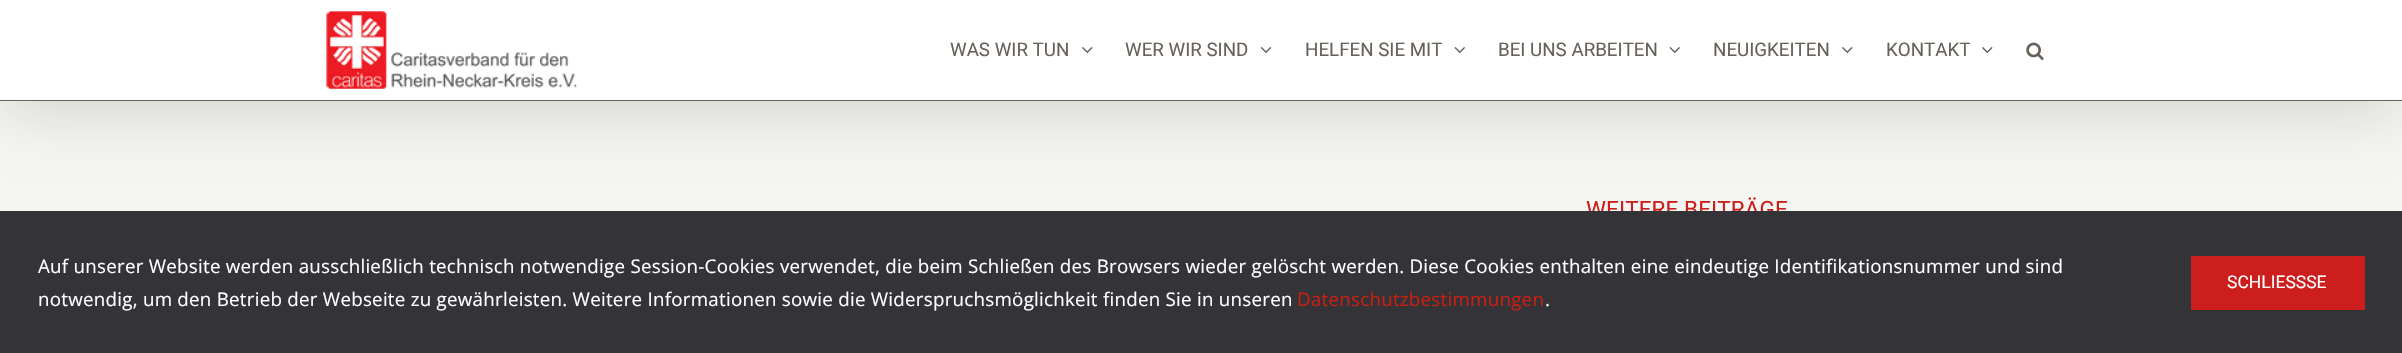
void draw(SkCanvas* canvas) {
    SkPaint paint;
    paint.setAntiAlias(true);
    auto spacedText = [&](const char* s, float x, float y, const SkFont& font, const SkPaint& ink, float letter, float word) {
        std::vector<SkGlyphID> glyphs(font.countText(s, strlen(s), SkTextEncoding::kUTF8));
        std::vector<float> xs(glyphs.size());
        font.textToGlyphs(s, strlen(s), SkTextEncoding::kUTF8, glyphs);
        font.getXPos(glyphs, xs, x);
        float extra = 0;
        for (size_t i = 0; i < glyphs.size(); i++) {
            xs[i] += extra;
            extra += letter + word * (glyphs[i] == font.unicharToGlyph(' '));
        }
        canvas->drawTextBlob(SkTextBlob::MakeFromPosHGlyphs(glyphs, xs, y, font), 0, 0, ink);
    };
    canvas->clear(0xFFF5F5F1);
    paint.setColor(0x24000000);
    paint.setMaskFilter(SkMaskFilter::MakeBlur(kNormal_SkBlurStyle, 31));
    canvas->drawRect(SkRect::MakeXYWH(3, 15, 2397, 96), paint);
    paint.setMaskFilter(nullptr);
    paint.setColor(0xFFFFFFFF);
    canvas->drawRect(SkRect::MakeXYWH(0, 0, 2402, 100), paint);
    paint.setColor(0xFF67615A);
    canvas->drawRect(SkRect::MakeXYWH(0, 100, 2402, 1), paint);
    canvas->drawImageRect(SkImages::DeferredFromEncodedData(SkData::MakeFromFileName("img1.png")), SkRect::MakeXYWH(326, 11, 251, 78), SkSamplingOptions());
    SkFont font1(fontMgr->matchFamilyStyle("Roboto", SkFontStyle::Normal()), 18.75f);
    font1.setSubpixel(true);
    canvas->drawString("WAS WIR TUN", 950, 56, font1, paint);
    canvas->drawImageRect(SkImages::DeferredFromEncodedData(SkData::MakeFromFileName("img2.png")), SkRect::MakeXYWH(1082, 47, 11, 6), SkSamplingOptions());
    canvas->drawString("WER WIR SIND", 1125, 56, font1, paint);
    canvas->drawImageRect(SkImages::DeferredFromEncodedData(SkData::MakeFromFileName("img3.png")), SkRect::MakeXYWH(1260, 47, 12, 6), SkSamplingOptions());
    canvas->drawString("HELFEN SIE MIT", 1305, 56, font1, paint);
    canvas->drawImageRect(SkImages::DeferredFromEncodedData(SkData::MakeFromFileName("img4.png")), SkRect::MakeXYWH(1454, 47, 11, 6), SkSamplingOptions());
    canvas->drawString("BEI UNS ARBEITEN", 1498, 56, font1, paint);
    canvas->drawImageRect(SkImages::DeferredFromEncodedData(SkData::MakeFromFileName("img4.png")), SkRect::MakeXYWH(1669, 47, 11, 6), SkSamplingOptions());
    canvas->drawString("NEUIGKEITEN", 1713, 56, font1, paint);
    canvas->drawImageRect(SkImages::DeferredFromEncodedData(SkData::MakeFromFileName("img2.png")), SkRect::MakeXYWH(1842, 47, 11, 6), SkSamplingOptions());
    canvas->drawString("KONTAKT", 1886, 56, font1, paint);
    canvas->drawImageRect(SkImages::DeferredFromEncodedData(SkData::MakeFromFileName("img2.png")), SkRect::MakeXYWH(1982, 47, 11, 6), SkSamplingOptions());
    canvas->drawImageRect(SkImages::DeferredFromEncodedData(SkData::MakeFromFileName("img5.png")), SkRect::MakeXYWH(2026, 42, 18, 18), SkSamplingOptions());
    SkFont font2(fontMgr->matchFamilyStyle("Roboto", SkFontStyle::Normal()), 22.5f);
    font2.setSubpixel(true);
    paint.setColor(0xFFCC1E1C);
    spacedText("WEITERE BEITRÄGE", 1586, 217, font2, paint, 0.1f, 0);
    paint.setColor(0xFF333338);
    canvas->drawRect(SkRect::MakeXYWH(0, 211, 2402, 142), paint);
    SkFont font3(fontMgr->matchFamilyStyle("Open Sans", SkFontStyle::Normal()), 18.75f);
    font3.setSubpixel(true);
    paint.setColor(0xFFFFFFFF);
    spacedText("Auf unserer Website werden ausschließlich technisch notwendige Session-Cookies verwendet, die beim Schließen des Browsers wieder gelöscht werden. Diese Cookies enthalten eine eindeutige Identifikationsnummer und sind", 38, 273, font3, paint, 0.25f, 0);
    spacedText("notwendig, um den Betrieb der Webseite zu gewährleisten. Weitere Informationen sowie die Widerspruchsmöglichkeit finden Sie in unseren", 38, 306, font3, paint, 0.25f, 0);
    paint.setColor(0xFFCC1E11);
    spacedText("Datenschutzbestimmungen", 1297, 306, font3, paint, 0.25f, 0);
    paint.setColor(0xFFFFFFFF);
    spacedText(".", 1545, 306, font3, paint, 0.25f, 0);
    paint.setColor(0xFFCC1E1C);
    canvas->drawRect(SkRect::MakeXYWH(2191, 256, 174, 54), paint);
    SkFont font4(fontMgr->matchFamilyStyle("Roboto", SkFontStyle::Normal()), 17.5f);
    font4.setSubpixel(true);
    paint.setColor(0xFFFFFFFF);
    canvas->drawString("SCHLIESSSE", 2227, 288, font4, paint);
}
